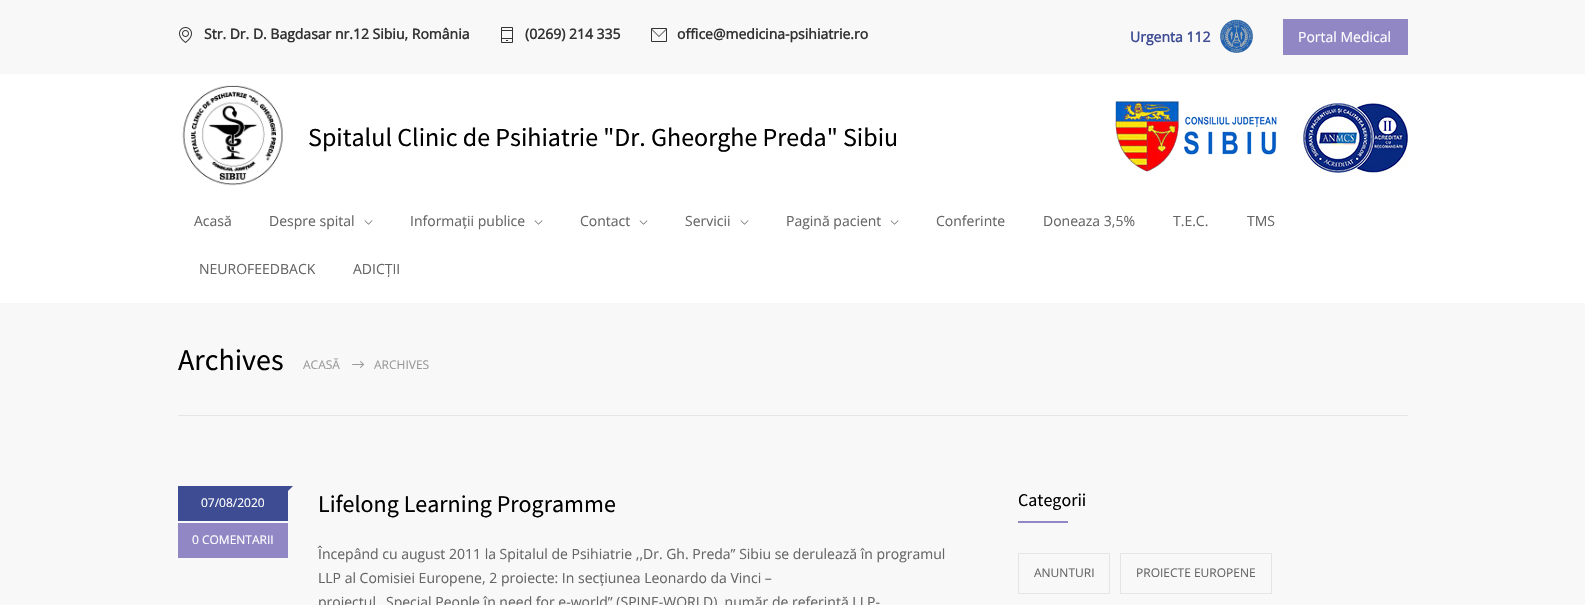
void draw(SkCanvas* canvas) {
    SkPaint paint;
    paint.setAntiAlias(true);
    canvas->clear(0xFFF8F8F8);
    canvas->drawImageRect(SkImages::DeferredFromEncodedData(SkData::MakeFromFileName("img1.png")), SkRect::MakeXYWH(179, 27, 13, 16), SkSamplingOptions());
    SkFont font1(fontMgr->matchFamilyStyle("Open Sans", SkFontStyle::Bold()), 14);
    font1.setSubpixel(true);
    paint.setColor(0xFF333333);
    canvas->drawString("Str. Dr. D. Bagdasar nr.12 Sibiu, România", 204, 39, font1, paint);
    canvas->drawImageRect(SkImages::DeferredFromEncodedData(SkData::MakeFromFileName("img2.png")), SkRect::MakeXYWH(501, 27, 12, 16), SkSamplingOptions());
    canvas->drawString("(0269) 214 335", 525, 39, font1, paint);
    canvas->drawImageRect(SkImages::DeferredFromEncodedData(SkData::MakeFromFileName("img3.png")), SkRect::MakeXYWH(651, 28, 16, 14), SkSamplingOptions());
    canvas->drawString("office@medicina-psihiatrie.ro", 677, 39, font1, paint);
    paint.setColor(0xFF3E4C94);
    canvas->drawString("Urgenta 112", 1130, 42, font1, paint);
    canvas->drawImageRect(SkImages::DeferredFromEncodedData(SkData::MakeFromFileName("img4.png")), SkRect::MakeXYWH(1220, 19, 33, 35), SkSamplingOptions());
    paint.setColor(0xFF9187C4);
    canvas->drawRect(SkRect::MakeXYWH(1283, 19, 125, 36), paint);
    SkFont font2(fontMgr->matchFamilyStyle("Open Sans", SkFontStyle::Normal()), 14);
    font2.setSubpixel(true);
    paint.setColor(0xFFFFFFFF);
    canvas->drawString("Portal Medical", 1298, 42, font2, paint);
    canvas->drawRect(SkRect::MakeXYWH(0, 74, 1585, 229), paint);
    canvas->drawImageRect(SkImages::DeferredFromEncodedData(SkData::MakeFromFileName("img5.png")), SkRect::MakeXYWH(182, 85, 101, 101), SkSamplingOptions());
    SkFont font3(fontMgr->matchFamilyStyle("Source Sans Pro", SkFontStyle::Normal()), 26);
    font3.setSubpixel(true);
    paint.setColor(0xFF000000);
    canvas->drawString("Spitalul Clinic de Psihiatrie \"Dr. Gheorghe Preda\" Sibiu", 308, 146, font3, paint);
    canvas->drawImageRect(SkImages::DeferredFromEncodedData(SkData::MakeFromFileName("img6.png")), SkRect::MakeXYWH(1115, 99, 162, 73), SkSamplingOptions());
    canvas->drawImageRect(SkImages::DeferredFromEncodedData(SkData::MakeFromFileName("img7.png")), SkRect::MakeXYWH(1303, 103, 105, 70), SkSamplingOptions());
    paint.setColor(0xFF666666);
    canvas->drawString("Acasă", 194, 226, font2, paint);
    canvas->drawString("Despre spital", 269, 226, font2, paint);
    canvas->drawImageRect(SkImages::DeferredFromEncodedData(SkData::MakeFromFileName("img8.png")), SkRect::MakeXYWH(364, 220, 9, 5), SkSamplingOptions());
    canvas->drawString("Informații publice", 410, 226, font2, paint);
    canvas->drawImageRect(SkImages::DeferredFromEncodedData(SkData::MakeFromFileName("img8.png")), SkRect::MakeXYWH(534, 220, 9, 5), SkSamplingOptions());
    canvas->drawString("Contact", 580, 226, font2, paint);
    canvas->drawImageRect(SkImages::DeferredFromEncodedData(SkData::MakeFromFileName("img8.png")), SkRect::MakeXYWH(639, 220, 9, 5), SkSamplingOptions());
    canvas->drawString("Servicii", 685, 226, font2, paint);
    canvas->drawImageRect(SkImages::DeferredFromEncodedData(SkData::MakeFromFileName("img8.png")), SkRect::MakeXYWH(740, 220, 9, 5), SkSamplingOptions());
    canvas->drawString("Pagină pacient", 786, 226, font2, paint);
    canvas->drawImageRect(SkImages::DeferredFromEncodedData(SkData::MakeFromFileName("img8.png")), SkRect::MakeXYWH(890, 220, 9, 5), SkSamplingOptions());
    canvas->drawString("Conferinte", 936, 226, font2, paint);
    canvas->drawString("Doneaza 3,5%", 1043, 226, font2, paint);
    canvas->drawString("T.E.C.", 1173, 226, font2, paint);
    canvas->drawString("TMS", 1247, 226, font2, paint);
    canvas->drawString("NEUROFEEDBACK", 199, 274, font2, paint);
    canvas->drawString("ADICȚII", 353, 274, font2, paint);
    paint.setColor(0xFFE5E5E5);
    canvas->drawRect(SkRect::MakeXYWH(178, 415, 1230, 1), paint);
    SkFont font4(fontMgr->matchFamilyStyle("Source Sans Pro", SkFontStyle::Normal()), 30);
    font4.setSubpixel(true);
    paint.setColor(0xFF000000);
    canvas->drawString("Archives", 178, 370, font4, paint);
    SkFont font5(fontMgr->matchFamilyStyle("Open Sans", SkFontStyle::Normal()), 12);
    font5.setSubpixel(true);
    paint.setColor(0xFF999999);
    canvas->drawString("ACASĂ", 303, 369, font5, paint);
    canvas->drawImageRect(SkImages::DeferredFromEncodedData(SkData::MakeFromFileName("img9.png")), SkRect::MakeXYWH(352, 361, 12, 7), SkSamplingOptions());
    canvas->drawString("ARCHIVES", 374, 369, font5, paint);
    paint.setColor(0xFF3E4C94);
    canvas->drawPath(SkPathBuilder().moveTo(288, 486).lineTo(293, 486).lineTo(288, 491).close().detach(), paint);
    canvas->drawRect(SkRect::MakeXYWH(178, 486, 110, 35), paint);
    paint.setColor(0xFFFFFFFF);
    canvas->drawString("07/08/2020", 201, 507, font5, paint);
    paint.setColor(0xFF9187C4);
    canvas->drawRect(SkRect::MakeXYWH(178, 523, 110, 35), paint);
    paint.setColor(0xFFFFFFFF);
    canvas->drawString("0 COMENTARII", 192, 544, font5, paint);
    SkFont font6(fontMgr->matchFamilyStyle("Source Sans Pro", SkFontStyle::Normal()), 24);
    font6.setSubpixel(true);
    paint.setColor(0xFF000000);
    canvas->drawString("Lifelong Learning Programme", 318, 512, font6, paint);
    paint.setColor(0xFF666666);
    canvas->drawString("Începând cu august 2011 la Spitalul de Psihiatrie ,,Dr. Gh. Preda” Sibiu se derulează în programul", 318, 559, font2, paint);
    canvas->drawString("LLP al Comisiei Europene, 2 proiecte: In secțiunea Leonardo da Vinci –", 318, 583, font2, paint);
    canvas->drawString("proiectul", 318, 607, font2, paint);
    canvas->drawString("Special People în need for e-world” (SPINE-WORLD), număr de referință LLP-", 386, 607, font2, paint);
    SkFont font7(fontMgr->matchFamilyStyle("Source Sans Pro", SkFontStyle::Normal()), 18);
    font7.setSubpixel(true);
    paint.setColor(0xFF000000);
    canvas->drawString("Categorii", 1018, 506, font7, paint);
    paint.setColor(0xFF9187C4);
    canvas->drawRect(SkRect::MakeXYWH(1018, 521, 50, 2), paint);
    paint.setStyle(SkPaint::kStroke_Style);
    paint.setStrokeWidth(1);
    paint.setColor(0xFFE5E5E5);
    canvas->drawRect(SkRect::MakeXYWH(1018.5f, 553.5f, 91, 40), paint);
    paint.setStyle(SkPaint::kFill_Style);
    paint.setColor(0xFF666666);
    canvas->drawString("ANUNTURI", 1034, 577, font5, paint);
    paint.setStyle(SkPaint::kStroke_Style);
    paint.setColor(0xFFE5E5E5);
    canvas->drawRect(SkRect::MakeXYWH(1120.5f, 553.5f, 151, 40), paint);
    paint.setStyle(SkPaint::kFill_Style);
    paint.setColor(0xFF666666);
    canvas->drawString("PROIECTE EUROPENE", 1136, 577, font5, paint);
}
